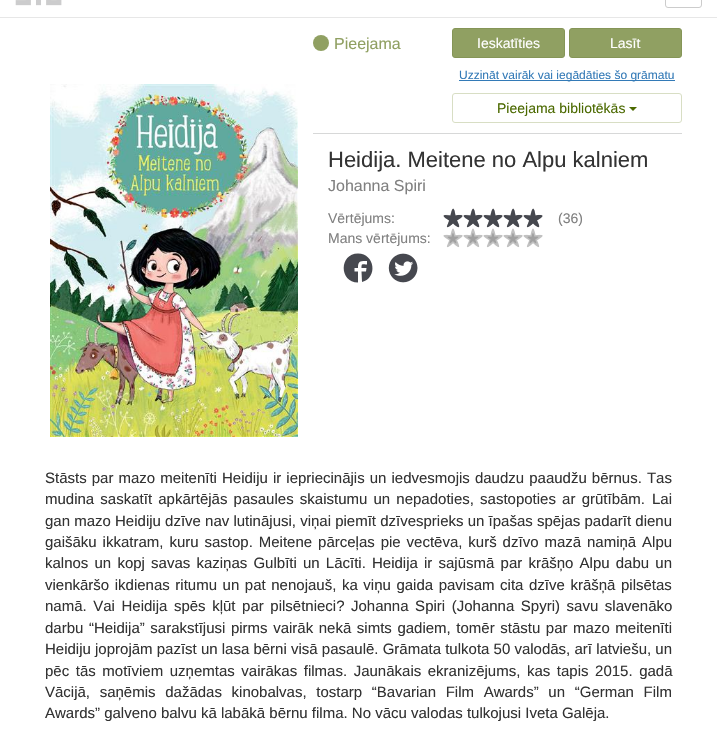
void draw(SkCanvas* canvas) {
    SkPaint paint;
    paint.setAntiAlias(true);
    auto spacedText = [&](const char* s, float x, float y, const SkFont& font, const SkPaint& ink, float letter, float word) {
        std::vector<SkGlyphID> glyphs(font.countText(s, strlen(s), SkTextEncoding::kUTF8));
        std::vector<float> xs(glyphs.size());
        font.textToGlyphs(s, strlen(s), SkTextEncoding::kUTF8, glyphs);
        font.getXPos(glyphs, xs, x);
        float extra = 0;
        for (size_t i = 0; i < glyphs.size(); i++) {
            xs[i] += extra;
            extra += letter + word * (glyphs[i] == font.unicharToGlyph(' '));
        }
        canvas->drawTextBlob(SkTextBlob::MakeFromPosHGlyphs(glyphs, xs, y, font), 0, 0, ink);
    };
    canvas->clear(0xFFFFFFFF);
    paint.setColor(0xFFE7E7E7);
    canvas->drawRect(SkRect::MakeXYWH(0, 17, 717, 1), paint);
    canvas->drawImageRect(SkImages::DeferredFromEncodedData(SkData::MakeFromFileName("img1.png")), SkRect::MakeXYWH(15, 0, 47, 6), SkSamplingOptions());
    paint.setStyle(SkPaint::kStroke_Style);
    paint.setStrokeWidth(1);
    paint.setColor(0xFFCCCCCC);
    canvas->drawRoundRect(SkRect::MakeXYWH(665.5f, -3.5f, 36, 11), 2.5f, 2.5f, paint);
    canvas->drawImageRect(SkImages::DeferredFromEncodedData(SkData::MakeFromFileName("img2.png")), SkRect::MakeXYWH(50, 84, 248, 353), SkSamplingOptions());
    paint.setStyle(SkPaint::kFill_Style);
    paint.setColor(0xFFD7D8D8);
    canvas->drawRect(SkRect::MakeXYWH(313, 133, 369, 1), paint);
    paint.setColor(0xFF90A062);
    canvas->drawCircle(321, 43, 8, paint);
    SkFont font1(fontMgr->matchFamilyStyle("Liberation Sans", SkFontStyle::Normal()), 16);
    font1.setSubpixel(true);
    canvas->drawString("Pieejama", 334, 49, font1, paint);
    canvas->drawRoundRect(SkRect::MakeXYWH(452.5f, 28.5f, 112, 29), 2.5f, 2.5f, paint);
    paint.setStyle(SkPaint::kStroke_Style);
    paint.setColor(0xFF859557);
    canvas->drawRoundRect(SkRect::MakeXYWH(452.5f, 28.5f, 112, 29), 2.5f, 2.5f, paint);
    SkFont font2(fontMgr->matchFamilyStyle("Liberation Sans", SkFontStyle::Normal()), 14);
    font2.setSubpixel(true);
    paint.setStyle(SkPaint::kFill_Style);
    paint.setColor(0xFFFFFFFF);
    canvas->drawString("Ieskatīties", 477, 48, font2, paint);
    paint.setColor(0xFF90A062);
    canvas->drawRoundRect(SkRect::MakeXYWH(569.5f, 28.5f, 112, 29), 2.5f, 2.5f, paint);
    paint.setStyle(SkPaint::kStroke_Style);
    paint.setColor(0xFF859557);
    canvas->drawRoundRect(SkRect::MakeXYWH(569.5f, 28.5f, 112, 29), 2.5f, 2.5f, paint);
    paint.setStyle(SkPaint::kFill_Style);
    paint.setColor(0xFFFFFFFF);
    canvas->drawString("Lasīt", 610, 48, font2, paint);
    paint.setColor(0xFF337AB7);
    canvas->drawRect(SkRect::MakeXYWH(459, 80, 216, 1), paint);
    SkFont font3(fontMgr->matchFamilyStyle("Liberation Sans", SkFontStyle::Normal()), 12);
    font3.setSubpixel(true);
    canvas->drawString("Uzzināt vairāk vai iegādāties šo grāmatu", 459, 79, font3, paint);
    paint.setStyle(SkPaint::kStroke_Style);
    paint.setColor(0xFFD8DEC4);
    canvas->drawRoundRect(SkRect::MakeXYWH(452.5f, 93.5f, 229, 29), 2.5f, 2.5f, paint);
    paint.setStyle(SkPaint::kFill_Style);
    paint.setColor(0xFF4B6900);
    canvas->drawString("Pieejama bibliotēkās", 497, 113, font2, paint);
    canvas->drawPath(SkPathBuilder().moveTo(629, 107).lineTo(637, 107).lineTo(633, 111).close().detach(), paint);
    SkFont font4(fontMgr->matchFamilyStyle("Liberation Sans", SkFontStyle::Normal()), 22);
    font4.setSubpixel(true);
    paint.setColor(0xFF333333);
    canvas->drawString("Heidija. Meitene no Alpu kalniem", 328, 167, font4, paint);
    paint.setColor(0xFF808080);
    canvas->drawString("Johanna Spiri", 328, 191, font1, paint);
    canvas->drawString("Vērtējums:", 328, 223, font2, paint);
    canvas->drawImageRect(SkImages::DeferredFromEncodedData(SkData::MakeFromFileName("img3.png")), SkRect::MakeXYWH(443, 208, 20, 20), SkSamplingOptions());
    canvas->drawImageRect(SkImages::DeferredFromEncodedData(SkData::MakeFromFileName("img3.png")), SkRect::MakeXYWH(463, 208, 20, 20), SkSamplingOptions());
    canvas->drawImageRect(SkImages::DeferredFromEncodedData(SkData::MakeFromFileName("img3.png")), SkRect::MakeXYWH(483, 208, 20, 20), SkSamplingOptions());
    canvas->drawImageRect(SkImages::DeferredFromEncodedData(SkData::MakeFromFileName("img3.png")), SkRect::MakeXYWH(503, 208, 20, 20), SkSamplingOptions());
    canvas->drawImageRect(SkImages::DeferredFromEncodedData(SkData::MakeFromFileName("img3.png")), SkRect::MakeXYWH(523, 208, 20, 20), SkSamplingOptions());
    paint.setColor(0xFF46484F);
    canvas->drawPath(SkPathBuilder().moveTo(450.5f, 215.5f).lineTo(445, 215).cubicTo(440.5f, 216, 449, 220, 449, 220.5f).cubicTo(449, 222, 446.5f, 226.5f, 447, 227).cubicTo(448.5f, 228, 453, 223.5f, 453, 223.5f).cubicTo(459.5f, 229.5f, 461, 228, 457, 220.5f).cubicTo(464.5f, 216.5f, 464.5f, 214, 455.5f, 215.5f).lineTo(454.5f, 210.5f).cubicTo(452.5f, 205, 451, 213.5f, 450.5f, 215.5f).moveTo(470.5f, 215.5f).lineTo(465, 215).cubicTo(460.5f, 216, 469, 220, 469, 220.5f).cubicTo(469, 222, 466.5f, 226.5f, 467, 227).cubicTo(468.5f, 228, 473, 223.5f, 473, 223.5f).cubicTo(479.5f, 229.5f, 481, 228, 477, 220.5f).cubicTo(484.5f, 216.5f, 484.5f, 214, 475.5f, 215.5f).lineTo(474.5f, 210.5f).cubicTo(472.5f, 205, 471, 213.5f, 470.5f, 215.5f).moveTo(490.5f, 215.5f).lineTo(485, 215).cubicTo(480.5f, 216, 489, 220, 489, 220.5f).cubicTo(489, 222, 486.5f, 226.5f, 487, 227).cubicTo(488.5f, 228, 493, 223.5f, 493, 223.5f).cubicTo(499.5f, 229.5f, 501, 228, 497, 220.5f).cubicTo(504.5f, 216.5f, 504.5f, 214, 495.5f, 215.5f).lineTo(494.5f, 210.5f).cubicTo(492.5f, 205, 491, 213.5f, 490.5f, 215.5f).detach(), paint);
    canvas->drawPath(SkPathBuilder().moveTo(510.5f, 215.5f).lineTo(505, 215).cubicTo(500.5f, 216, 509, 220, 509, 220.5f).cubicTo(509, 222, 506.5f, 226.5f, 507, 227).cubicTo(508.5f, 228, 513, 223.5f, 513, 223.5f).cubicTo(519.5f, 229.5f, 521, 228, 517, 220.5f).cubicTo(524.5f, 216.5f, 524.5f, 214, 515.5f, 215.5f).lineTo(514.5f, 210.5f).cubicTo(512.5f, 205, 511, 213.5f, 510.5f, 215.5f).moveTo(530.5f, 215.5f).lineTo(525, 215).cubicTo(520.5f, 216, 529, 220, 529, 220.5f).cubicTo(529, 222, 526.5f, 226.5f, 527, 227).cubicTo(528.5f, 228, 533, 223.5f, 533, 223.5f).cubicTo(539.5f, 229.5f, 541, 228, 537, 220.5f).cubicTo(544.5f, 216.5f, 544.5f, 214, 535.5f, 215.5f).lineTo(534.5f, 210.5f).cubicTo(532.5f, 205, 531, 213.5f, 530.5f, 215.5f).detach(), paint);
    paint.setColor(0xFF808080);
    canvas->drawString("(36)", 558, 223, font2, paint);
    canvas->drawString("Mans vērtējums:", 328, 243, font2, paint);
    canvas->drawImageRect(SkImages::DeferredFromEncodedData(SkData::MakeFromFileName("img3.png")), SkRect::MakeXYWH(443, 228, 20, 20), SkSamplingOptions());
    canvas->drawImageRect(SkImages::DeferredFromEncodedData(SkData::MakeFromFileName("img3.png")), SkRect::MakeXYWH(463, 228, 20, 20), SkSamplingOptions());
    canvas->drawImageRect(SkImages::DeferredFromEncodedData(SkData::MakeFromFileName("img3.png")), SkRect::MakeXYWH(483, 228, 20, 20), SkSamplingOptions());
    canvas->drawImageRect(SkImages::DeferredFromEncodedData(SkData::MakeFromFileName("img3.png")), SkRect::MakeXYWH(503, 228, 20, 20), SkSamplingOptions());
    canvas->drawImageRect(SkImages::DeferredFromEncodedData(SkData::MakeFromFileName("img3.png")), SkRect::MakeXYWH(523, 228, 20, 20), SkSamplingOptions());
    paint.setColor(0xFF46484F);
    canvas->drawPath(SkPathBuilder().moveTo(358, 253.5f).cubicTo(339, 253.5f, 339, 282.5f, 358, 282.5f).lineTo(358, 271.5f).lineTo(354.5f, 271.5f).lineTo(354.5f, 268).lineTo(358, 268).cubicTo(358, 260.5f, 360.5f, 261, 367, 261).lineTo(367, 264.5f).cubicTo(362, 264.5f, 361.5f, 263, 361.5f, 268).lineTo(366.5f, 268).lineTo(366, 271.5f).lineTo(361.5f, 271.5f).lineTo(362, 282).cubicTo(378, 278, 375, 253.5f, 358, 253.5f).close().detach(), paint);
    canvas->drawImageRect(SkImages::DeferredFromEncodedData(SkData::MakeFromFileName("img4.png")), SkRect::MakeXYWH(388, 253, 30, 30), SkSamplingOptions());
    SkFont font5(fontMgr->matchFamilyStyle("Liberation Sans", SkFontStyle::Normal()), 15);
    font5.setSubpixel(true);
    paint.setColor(0xFF333333);
    spacedText("Stāsts par mazo meitenīti Heidiju ir iepriecinājis un iedvesmojis daudzu paaudžu bērnus. Tas", 45, 483, font5, paint, 0, 0.9f);
    spacedText("mudina saskatīt apkārtējās pasaules skaistumu un nepadoties, sastopoties ar grūtībām.", 45, 504, font5, paint, 0, 2);
    canvas->drawString("Lai", 652, 504, font5, paint);
    canvas->drawString("gan mazo Heidiju dzīve nav lutinājusi, viņai piemīt dzīvesprieks un īpašas spējas padarīt dienu", 45, 526, font5, paint);
    spacedText("gaišāku ikkatram, kuru sastop. Meitene pārceļas pie vectēva, kurš dzīvo mazā namiņā Alpu", 45, 547, font5, paint, 0, 1.75f);
    spacedText("kalnos un kopj savas kaziņas Gulbīti un Lācīti. Heidija ir sajūsmā par krāšņo Alpu dabu un", 45, 568, font5, paint, 0, 2);
    spacedText("vienkāršo ikdienas ritumu un pat nenojauš, ka viņu gaida pavisam cita dzīve krāšņā pilsētas", 45, 590, font5, paint, 0, 1.4f);
    spacedText("namā. Vai Heidija spēs kļūt par pilsētnieci?", 45, 611, font5, paint, 0, 2.4f);
    spacedText("Johanna Spiri (Johanna Spyri) savu slavenāko", 351, 611, font5, paint, 0, 2.4f);
    spacedText("darbu “Heidija” sarakstījusi pirms vairāk nekā simts gadiem, tomēr stāstu par mazo meitenīti", 45, 633, font5, paint, 0, 1.4f);
    canvas->drawString("Heidiju joprojām pazīst un lasa bērni visā pasaulē. Grāmata tulkota 50 valodās, arī latviešu, un", 45, 654, font5, paint);
    spacedText("pēc tās motīviem uzņemtas vairākas filmas. Jaunākais ekranizējums, kas tapis 2015. gadā", 45, 676, font5, paint, 0, 2.4f);
    spacedText("Vācijā, saņēmis dažādas kinobalvas, tostarp “Bavarian Film Awards” un “German Film", 45, 697, font5, paint, 0, 5.5f);
    canvas->drawString("Awards” galveno balvu kā labākā bērnu filma. No vācu valodas tulkojusi Iveta Galēja.", 45, 718, font5, paint);
}
